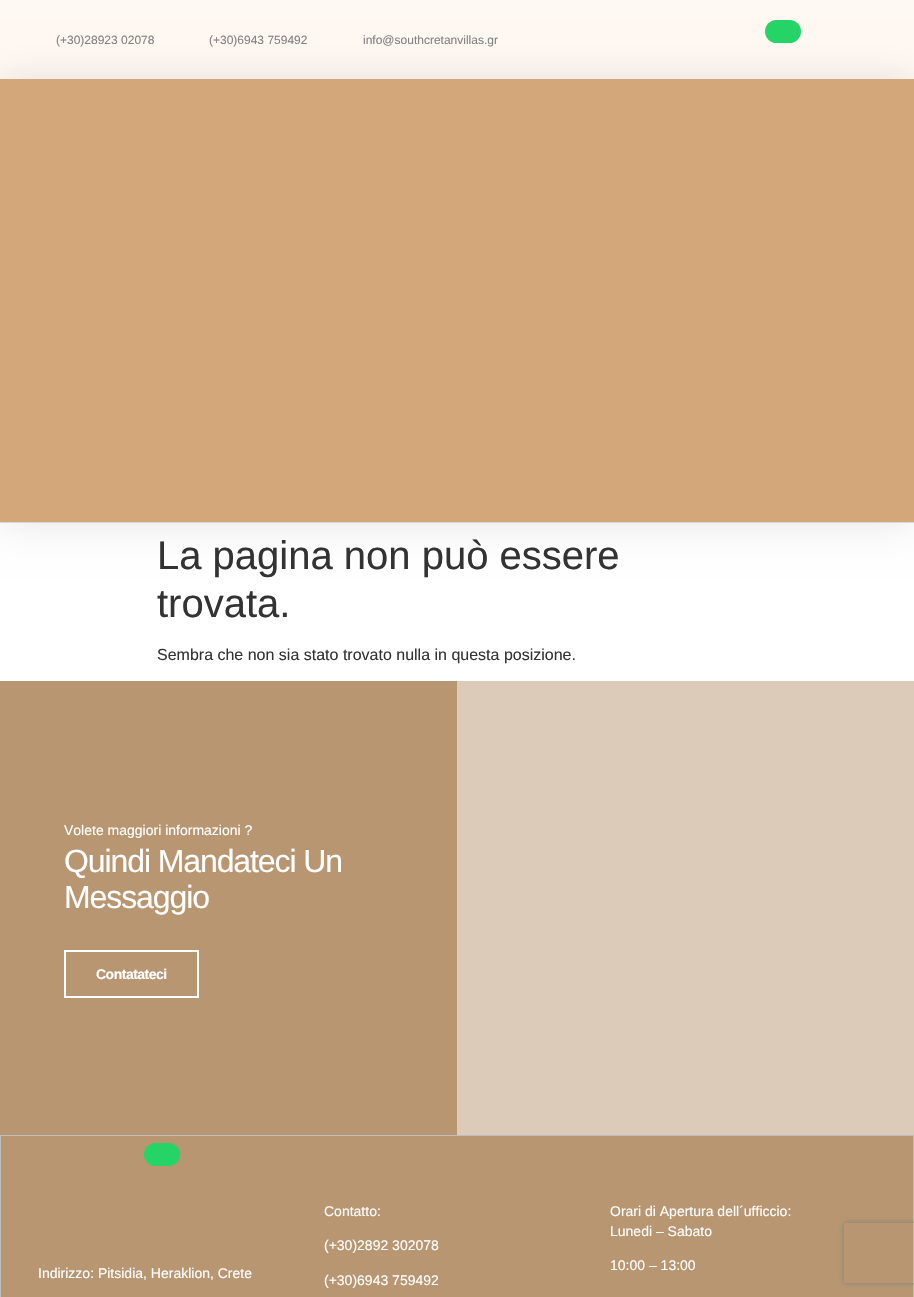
void draw(SkCanvas* canvas) {
    SkPaint paint;
    paint.setAntiAlias(true);
    auto spacedText = [&](const char* s, float x, float y, const SkFont& font, const SkPaint& ink, float letter, float word) {
        std::vector<SkGlyphID> glyphs(font.countText(s, strlen(s), SkTextEncoding::kUTF8));
        std::vector<float> xs(glyphs.size());
        font.textToGlyphs(s, strlen(s), SkTextEncoding::kUTF8, glyphs);
        font.getXPos(glyphs, xs, x);
        float extra = 0;
        for (size_t i = 0; i < glyphs.size(); i++) {
            xs[i] += extra;
            extra += letter + word * (glyphs[i] == font.unicharToGlyph(' '));
        }
        canvas->drawTextBlob(SkTextBlob::MakeFromPosHGlyphs(glyphs, xs, y, font), 0, 0, ink);
    };
    canvas->clear(0xFFFFFFFF);
    paint.setColor(0xFFFFF8F3);
    canvas->drawRect(SkRect::MakeXYWH(0, 0, 914, 79), paint);
    paint.setColor(0x1A000000);
    paint.setMaskFilter(SkMaskFilter::MakeBlur(kNormal_SkBlurStyle, 19));
    canvas->drawRect(SkRect::MakeXYWH(0, 79, 914, 444), paint);
    paint.setMaskFilter(nullptr);
    paint.setColor(0xFFD3A77A);
    canvas->drawRect(SkRect::MakeXYWH(0, 79, 914, 443), paint);
    paint.setColor(0xFFD8D8D8);
    canvas->drawRect(SkRect::MakeXYWH(0, 522, 914, 1), paint);
    SkFont font1(fontMgr->matchFamilyStyle("Liberation Sans", SkFontStyle::Normal()), 12);
    font1.setSubpixel(true);
    paint.setColor(0xFF848181);
    canvas->drawString("(+30)28923 02078", 56, 44, font1, paint);
    canvas->drawString("(+30)6943 759492", 209, 44, font1, paint);
    canvas->drawString("info@southcretanvillas.gr", 363, 44, font1, paint);
    paint.setColor(0xFF25D366);
    canvas->drawRoundRect(SkRect::MakeXYWH(765, 20, 36, 23), 11.5f, 11.5f, paint);
    SkFont font2(fontMgr->matchFamilyStyle("Liberation Sans", SkFontStyle::Normal()), 40);
    font2.setSubpixel(true);
    paint.setColor(0xFF333333);
    canvas->drawString("La pagina non può essere", 157, 569, font2, paint);
    canvas->drawString("trovata.", 157, 617, font2, paint);
    SkFont font3(fontMgr->matchFamilyStyle("Liberation Sans", SkFontStyle::Normal()), 16);
    font3.setSubpixel(true);
    canvas->drawString("Sembra che non sia stato trovato nulla in questa posizione.", 157, 660, font3, paint);
    paint.setColor(0xFFB79671);
    canvas->drawRect(SkRect::MakeXYWH(0, 681, 457, 454), paint);
    SkFont font4(fontMgr->matchFamilyStyle("Liberation Sans", SkFontStyle::Normal()), 14);
    font4.setSubpixel(true);
    paint.setColor(0xFFFFFFFF);
    canvas->drawString("Volete maggiori informazioni ?", 64, 835, font4, paint);
    SkFont font5(fontMgr->matchFamilyStyle("Liberation Sans", SkFontStyle::Normal()), 32);
    font5.setSubpixel(true);
    spacedText("Quindi Mandateci Un", 64, 872, font5, paint, -1.1f, 0);
    spacedText("Messaggio", 64, 908, font5, paint, -1.1f, 0);
    paint.setStyle(SkPaint::kStroke_Style);
    paint.setStrokeWidth(2);
    canvas->drawRect(SkRect::MakeXYWH(65, 951, 133, 46), paint);
    SkFont font6(fontMgr->matchFamilyStyle("Liberation Sans", SkFontStyle::Bold()), 14);
    font6.setSubpixel(true);
    paint.setStyle(SkPaint::kFill_Style);
    spacedText("Contatateci", 96, 979, font6, paint, -0.5f, 0);
    paint.setColor(0xFFDBCBB8);
    canvas->drawRect(SkRect::MakeXYWH(457, 681, 457, 454), paint);
    paint.setColor(0xFFB79671);
    canvas->drawRect(SkRect::MakeXYWH(0.5f, 1135.5f, 913, 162), paint);
    paint.setStyle(SkPaint::kStroke_Style);
    paint.setStrokeWidth(1);
    paint.setColor(0xFFC2BDBD);
    canvas->drawRect(SkRect::MakeXYWH(0.5f, 1135.5f, 913, 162), paint);
    paint.setStyle(SkPaint::kFill_Style);
    paint.setColor(0xFF25D366);
    canvas->drawRoundRect(SkRect::MakeXYWH(144, 1143, 36, 23), 11.5f, 11.5f, paint);
    paint.setColor(0xFFFFFFFF);
    canvas->drawString("Indirizzo: Pitsidia, Heraklion, Crete", 38, 1278, font4, paint);
    canvas->drawString("Contatto:", 324, 1216, font4, paint);
    canvas->drawString("(+30)2892 302078", 324, 1250, font4, paint);
    canvas->drawString("(+30)6943 759492", 324, 1285, font4, paint);
    canvas->drawString("Orari di Apertura dell´ufficcio:", 610, 1216, font4, paint);
    canvas->drawString("Lunedi – Sabato", 610, 1236, font4, paint);
    canvas->drawString("10:00 – 13:00", 610, 1270, font4, paint);
    canvas->save();
    canvas->clipPath(SkPathBuilder(SkPathFillType::kEvenOdd).moveTo(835, 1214).lineTo(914, 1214).lineTo(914, 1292).lineTo(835, 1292).close().moveTo(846, 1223).lineTo(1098, 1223).cubicTo(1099, 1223, 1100, 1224, 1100, 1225).lineTo(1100, 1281).cubicTo(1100, 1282, 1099, 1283, 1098, 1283).lineTo(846, 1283).cubicTo(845, 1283, 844, 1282, 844, 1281).lineTo(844, 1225).cubicTo(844, 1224, 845, 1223, 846, 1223).close().detach(), true);
    paint.setColor(0xFF808080);
    paint.setMaskFilter(SkMaskFilter::MakeBlur(kNormal_SkBlurStyle, 2.5f));
    canvas->drawRoundRect(SkRect::MakeXYWH(844, 1223, 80, 60), 2, 2, paint);
    paint.setMaskFilter(nullptr);
    canvas->restore();
}
